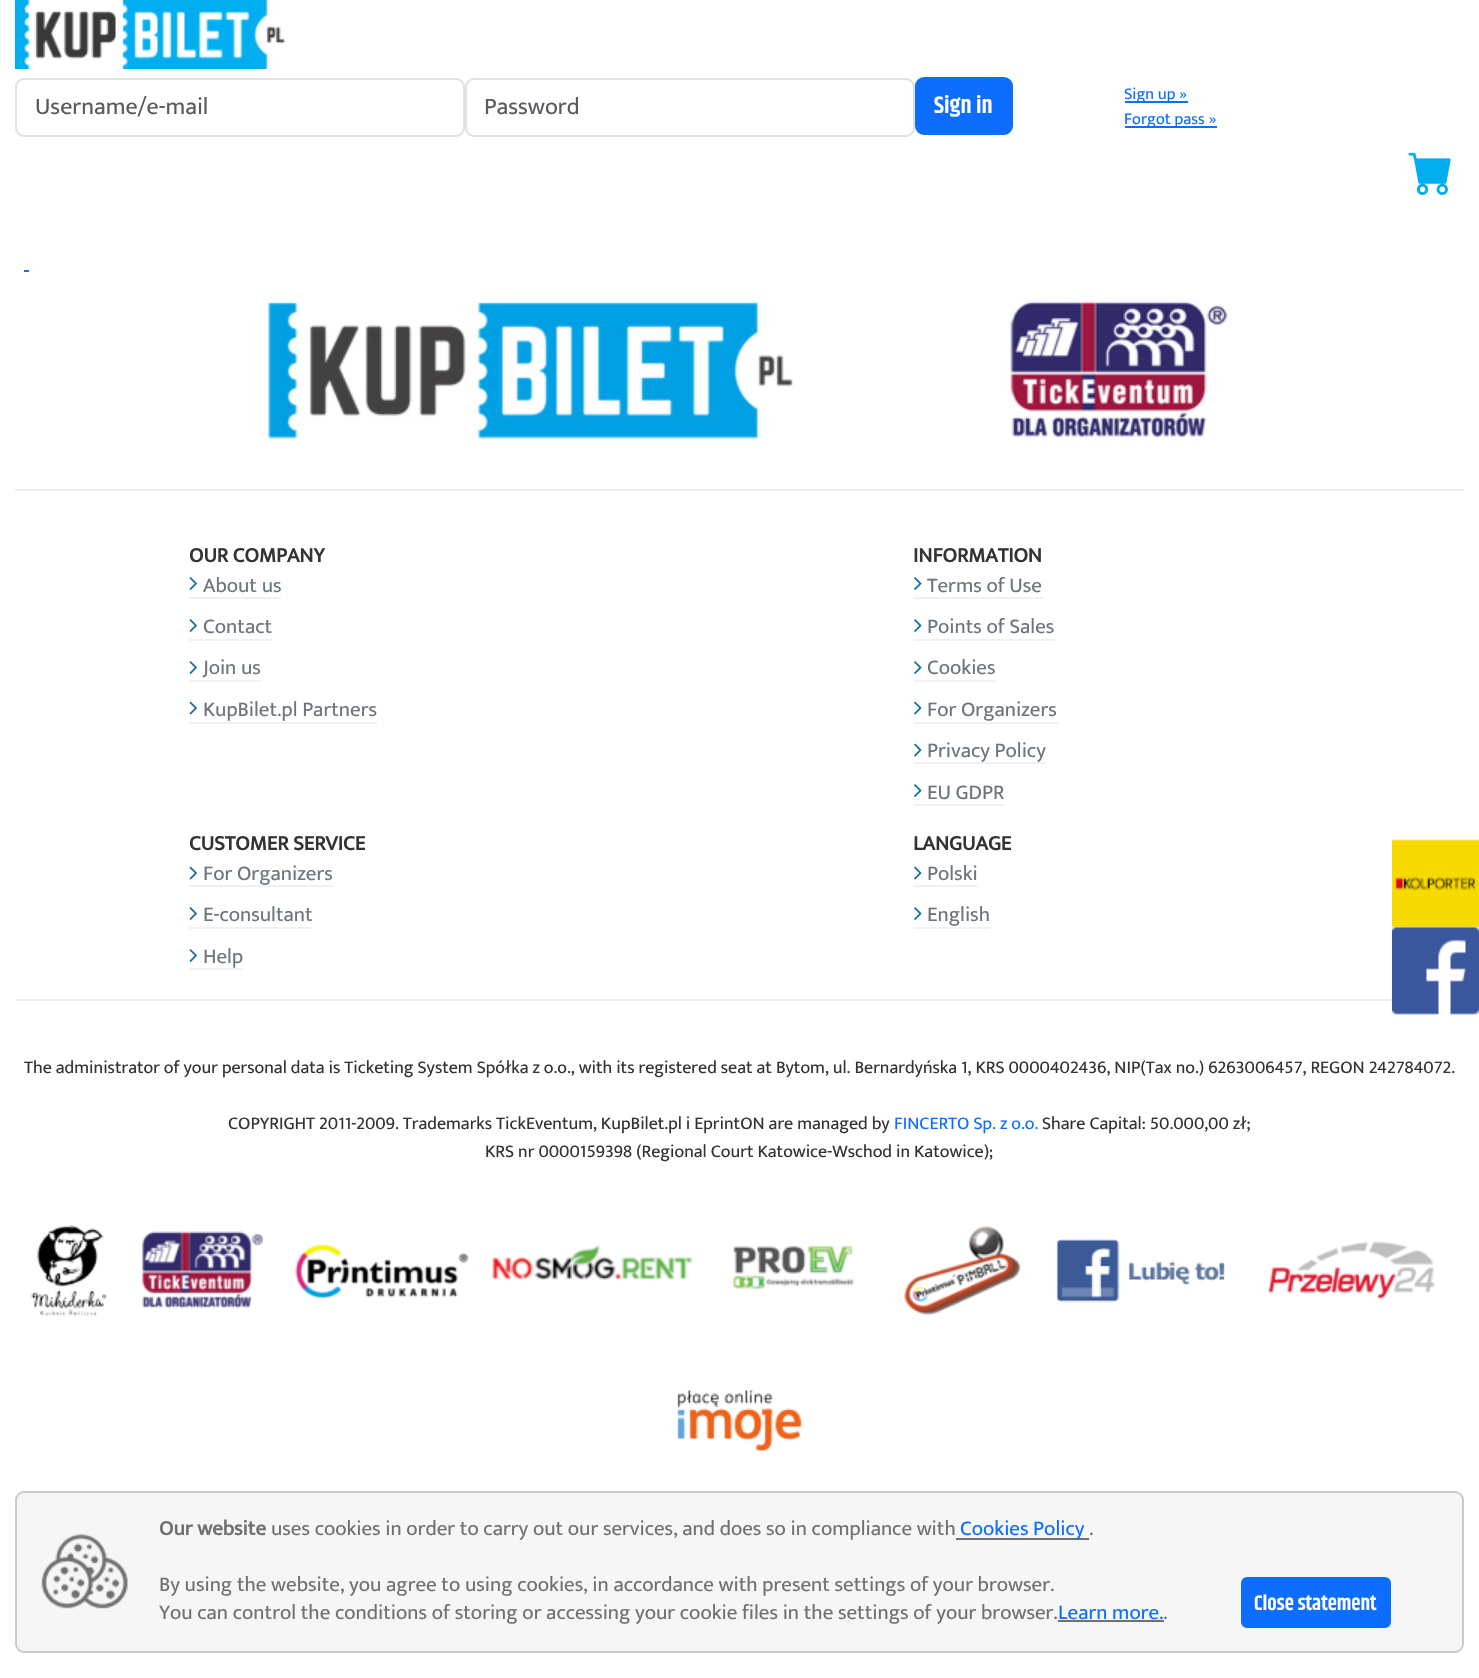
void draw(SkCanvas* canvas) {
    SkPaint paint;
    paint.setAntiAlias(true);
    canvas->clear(0xFFFFFFFF);
    canvas->drawImageRect(SkImages::DeferredFromEncodedData(SkData::MakeFromFileName("img1.png")), SkRect::MakeXYWH(15, 0, 270, 69), SkSamplingOptions());
    paint.setStyle(SkPaint::kStroke_Style);
    paint.setStrokeWidth(2);
    paint.setColor(0xFFDEE2E6);
    canvas->drawRoundRect(SkRect::MakeXYWH(16, 79, 448, 57), 8, 8, paint);
    SkFont font1(fontMgr->matchFamilyStyle("Ek Mukta", SkFontStyle::Normal()), 24);
    font1.setSubpixel(true);
    paint.setStyle(SkPaint::kFill_Style);
    paint.setColor(0xFF595C5F);
    canvas->drawString("Username/e-mail", 35, 114, font1, paint);
    paint.setStyle(SkPaint::kStroke_Style);
    paint.setColor(0xFFDEE2E6);
    canvas->drawRoundRect(SkRect::MakeXYWH(466, 79, 448, 57), 8, 8, paint);
    paint.setStyle(SkPaint::kFill_Style);
    paint.setColor(0xFF595C5F);
    canvas->drawString("Password", 484, 114, font1, paint);
    paint.setColor(0xFF0D6EFD);
    canvas->drawRoundRect(SkRect::MakeXYWH(916, 78, 96, 56), 8, 8, paint);
    paint.setStyle(SkPaint::kStroke_Style);
    canvas->drawRoundRect(SkRect::MakeXYWH(916, 78, 96, 56), 8, 8, paint);
    SkFont font2(fontMgr->matchFamilyStyle("Khand", SkFontStyle(600, SkFontStyle::kNormal_Width, SkFontStyle::kUpright_Slant)), 24);
    font2.setSubpixel(true);
    paint.setStyle(SkPaint::kFill_Style);
    paint.setColor(0xFFFFFFFF);
    canvas->drawString("Sign in", 934, 113, font2, paint);
    paint.setColor(0xFF0D6EFD);
    canvas->drawRect(SkRect::MakeXYWH(1125, 101, 63, 2), paint);
    SkFont font3(fontMgr->matchFamilyStyle("Ek Mukta", SkFontStyle::Normal()), 16.5f);
    font3.setSubpixel(true);
    canvas->drawString("Sign up »", 1124, 99, font3, paint);
    canvas->drawRect(SkRect::MakeXYWH(1125, 126, 92, 2), paint);
    canvas->drawString("Forgot pass »", 1124, 124, font3, paint);
    canvas->drawImageRect(SkImages::DeferredFromEncodedData(SkData::MakeFromFileName("img2.png")), SkRect::MakeXYWH(1408, 152, 43, 43), SkSamplingOptions());
    canvas->drawRect(SkRect::MakeXYWH(24, 270, 5, 2), paint);
    canvas->drawImageRect(SkImages::DeferredFromEncodedData(SkData::MakeFromFileName("img3.png")), SkRect::MakeXYWH(267, 301, 961, 144), SkSamplingOptions());
    paint.setColor(0xFFEEEEEE);
    canvas->drawRect(SkRect::MakeXYWH(15, 489, 1449, 2), paint);
    SkFont font4(fontMgr->matchFamilyStyle("Ek Mukta", SkFontStyle::Bold()), 21);
    font4.setSubpixel(true);
    paint.setColor(0xFF333333);
    canvas->drawString("OUR COMPANY", 189, 562, font4, paint);
    canvas->drawImageRect(SkImages::DeferredFromEncodedData(SkData::MakeFromFileName("img4.png")), SkRect::MakeXYWH(189, 577, 8, 13), SkSamplingOptions());
    SkFont font5(fontMgr->matchFamilyStyle("Ek Mukta", SkFontStyle::Normal()), 21);
    font5.setSubpixel(true);
    paint.setColor(0xFF6C757D);
    canvas->drawString("About us", 203, 592, font5, paint);
    paint.setColor(0xFFF0F1F2);
    canvas->drawRect(SkRect::MakeXYWH(189, 597, 92, 2), paint);
    canvas->drawImageRect(SkImages::DeferredFromEncodedData(SkData::MakeFromFileName("img4.png")), SkRect::MakeXYWH(189, 619, 8, 13), SkSamplingOptions());
    paint.setColor(0xFF6C757D);
    canvas->drawString("Contact", 203, 633, font5, paint);
    paint.setColor(0xFFF0F1F2);
    canvas->drawRect(SkRect::MakeXYWH(189, 639, 83, 2), paint);
    canvas->drawImageRect(SkImages::DeferredFromEncodedData(SkData::MakeFromFileName("img4.png")), SkRect::MakeXYWH(189, 661, 8, 13), SkSamplingOptions());
    paint.setColor(0xFF6C757D);
    canvas->drawString("Join us", 203, 674, font5, paint);
    paint.setColor(0xFFF0F1F2);
    canvas->drawRect(SkRect::MakeXYWH(189, 680, 72, 2), paint);
    canvas->drawImageRect(SkImages::DeferredFromEncodedData(SkData::MakeFromFileName("img5.png")), SkRect::MakeXYWH(189, 701, 8, 14), SkSamplingOptions());
    paint.setColor(0xFF6C757D);
    canvas->drawString("KupBilet.pl Partners", 203, 716, font5, paint);
    paint.setColor(0xFFF0F1F2);
    canvas->drawRect(SkRect::MakeXYWH(189, 722, 188, 2), paint);
    paint.setColor(0xFF333333);
    canvas->drawString("INFORMATION", 913, 562, font4, paint);
    canvas->drawImageRect(SkImages::DeferredFromEncodedData(SkData::MakeFromFileName("img6.png")), SkRect::MakeXYWH(914, 577, 8, 13), SkSamplingOptions());
    paint.setColor(0xFF6C757D);
    canvas->drawString("Terms of Use", 927, 592, font5, paint);
    paint.setColor(0xFFF0F1F2);
    canvas->drawRect(SkRect::MakeXYWH(914, 597, 129, 2), paint);
    canvas->drawImageRect(SkImages::DeferredFromEncodedData(SkData::MakeFromFileName("img6.png")), SkRect::MakeXYWH(914, 619, 8, 13), SkSamplingOptions());
    paint.setColor(0xFF6C757D);
    canvas->drawString("Points of Sales", 927, 633, font5, paint);
    paint.setColor(0xFFF0F1F2);
    canvas->drawRect(SkRect::MakeXYWH(914, 639, 141, 2), paint);
    canvas->drawImageRect(SkImages::DeferredFromEncodedData(SkData::MakeFromFileName("img6.png")), SkRect::MakeXYWH(914, 661, 8, 13), SkSamplingOptions());
    paint.setColor(0xFF6C757D);
    canvas->drawString("Cookies", 927, 674, font5, paint);
    paint.setColor(0xFFF0F1F2);
    canvas->drawRect(SkRect::MakeXYWH(914, 680, 82, 2), paint);
    canvas->drawImageRect(SkImages::DeferredFromEncodedData(SkData::MakeFromFileName("img7.png")), SkRect::MakeXYWH(914, 701, 8, 14), SkSamplingOptions());
    paint.setColor(0xFF6C757D);
    canvas->drawString("For Organizers", 927, 716, font5, paint);
    paint.setColor(0xFFF0F1F2);
    canvas->drawRect(SkRect::MakeXYWH(914, 722, 144, 2), paint);
    canvas->drawImageRect(SkImages::DeferredFromEncodedData(SkData::MakeFromFileName("img7.png")), SkRect::MakeXYWH(914, 743, 8, 14), SkSamplingOptions());
    canvas->drawRect(SkRect::MakeXYWH(914, 762, 132, 2), paint);
    paint.setColor(0xFF6C757D);
    canvas->drawString("Privacy Policy", 927, 757, font5, paint);
    canvas->drawImageRect(SkImages::DeferredFromEncodedData(SkData::MakeFromFileName("img6.png")), SkRect::MakeXYWH(914, 784, 8, 13), SkSamplingOptions());
    canvas->drawString("EU GDPR", 927, 799, font5, paint);
    paint.setColor(0xFFF0F1F2);
    canvas->drawRect(SkRect::MakeXYWH(914, 804, 91, 2), paint);
    paint.setColor(0xFF333333);
    canvas->drawString("CUSTOMER SERVICE", 189, 850, font4, paint);
    canvas->drawImageRect(SkImages::DeferredFromEncodedData(SkData::MakeFromFileName("img5.png")), SkRect::MakeXYWH(189, 866, 8, 14), SkSamplingOptions());
    paint.setColor(0xFF6C757D);
    canvas->drawString("For Organizers", 203, 880, font5, paint);
    paint.setColor(0xFFF0F1F2);
    canvas->drawRect(SkRect::MakeXYWH(189, 885, 144, 2), paint);
    canvas->drawImageRect(SkImages::DeferredFromEncodedData(SkData::MakeFromFileName("img4.png")), SkRect::MakeXYWH(189, 907, 8, 13), SkSamplingOptions());
    paint.setColor(0xFF6C757D);
    canvas->drawString("E-consultant", 203, 921, font5, paint);
    paint.setColor(0xFFF0F1F2);
    canvas->drawRect(SkRect::MakeXYWH(189, 927, 123, 2), paint);
    canvas->drawImageRect(SkImages::DeferredFromEncodedData(SkData::MakeFromFileName("img4.png")), SkRect::MakeXYWH(189, 949, 8, 13), SkSamplingOptions());
    paint.setColor(0xFF6C757D);
    canvas->drawString("Help", 203, 963, font5, paint);
    paint.setColor(0xFFF0F1F2);
    canvas->drawRect(SkRect::MakeXYWH(189, 968, 54, 2), paint);
    paint.setColor(0xFF333333);
    canvas->drawString("LANGUAGE", 913, 850, font4, paint);
    canvas->drawImageRect(SkImages::DeferredFromEncodedData(SkData::MakeFromFileName("img7.png")), SkRect::MakeXYWH(914, 866, 8, 14), SkSamplingOptions());
    paint.setColor(0xFF6C757D);
    canvas->drawString("Polski", 927, 880, font5, paint);
    paint.setColor(0xFFF0F1F2);
    canvas->drawRect(SkRect::MakeXYWH(914, 885, 64, 2), paint);
    canvas->drawImageRect(SkImages::DeferredFromEncodedData(SkData::MakeFromFileName("img6.png")), SkRect::MakeXYWH(914, 907, 8, 13), SkSamplingOptions());
    paint.setColor(0xFF6C757D);
    canvas->drawString("English", 927, 921, font5, paint);
    paint.setColor(0xFFF0F1F2);
    canvas->drawRect(SkRect::MakeXYWH(914, 927, 76, 2), paint);
    paint.setColor(0xFFEEEEEE);
    canvas->drawRect(SkRect::MakeXYWH(15, 999, 1377, 2), paint);
    SkFont font6(fontMgr->matchFamilyStyle("Ek Mukta", SkFontStyle::Normal()), 18);
    font6.setSubpixel(true);
    paint.setColor(0xFF333333);
    canvas->drawString("The administrator of your personal data is Ticketing System Spółka z o.o., with its registered seat at Bytom, ul. Bernardyńska 1, KRS 0000402436, NIP(Tax no.) 6263006457, REGON 242784072.", 24, 1073, font6, paint);
    canvas->drawString("COPYRIGHT 2011-2009. Trademarks TickEventum, KupBilet.pl i EprintON are managed by", 228, 1129, font6, paint);
    paint.setColor(0xFF0D6EFD);
    canvas->drawString("FINCERTO Sp. z o.o.", 894, 1129, font6, paint);
    paint.setColor(0xFF333333);
    canvas->drawString("Share Capital: 50.000,00 zł;", 1042, 1129, font6, paint);
    canvas->drawString("KRS nr 0000159398 (Regional Court Katowice-Wschod in Katowice);", 485, 1157, font6, paint);
    canvas->drawImageRect(SkImages::DeferredFromEncodedData(SkData::MakeFromFileName("img8.png")), SkRect::MakeXYWH(31, 1225, 76, 91), SkSamplingOptions());
    canvas->drawImageRect(SkImages::DeferredFromEncodedData(SkData::MakeFromFileName("img9.png")), SkRect::MakeXYWH(142, 1231, 122, 78), SkSamplingOptions());
    canvas->drawImageRect(SkImages::DeferredFromEncodedData(SkData::MakeFromFileName("img10.png")), SkRect::MakeXYWH(295, 1243, 174, 55), SkSamplingOptions());
    canvas->drawImageRect(SkImages::DeferredFromEncodedData(SkData::MakeFromFileName("img11.png")), SkRect::MakeXYWH(491, 1244, 202, 37), SkSamplingOptions());
    canvas->drawImageRect(SkImages::DeferredFromEncodedData(SkData::MakeFromFileName("img12.png")), SkRect::MakeXYWH(732, 1245, 122, 46), SkSamplingOptions());
    canvas->drawImageRect(SkImages::DeferredFromEncodedData(SkData::MakeFromFileName("img13.png")), SkRect::MakeXYWH(904, 1225, 117, 91), SkSamplingOptions());
    canvas->drawImageRect(SkImages::DeferredFromEncodedData(SkData::MakeFromFileName("img14.png")), SkRect::MakeXYWH(1056, 1239, 169, 64), SkSamplingOptions());
    canvas->drawImageRect(SkImages::DeferredFromEncodedData(SkData::MakeFromFileName("img15.png")), SkRect::MakeXYWH(1268, 1241, 167, 59), SkSamplingOptions());
    canvas->drawImageRect(SkImages::DeferredFromEncodedData(SkData::MakeFromFileName("img16.png")), SkRect::MakeXYWH(677, 1390, 125, 61), SkSamplingOptions());
    canvas->drawImageRect(SkImages::DeferredFromEncodedData(SkData::MakeFromFileName("img18.png")), SkRect::MakeXYWH(1392, 926, 87, 89), SkSamplingOptions());
    canvas->drawImageRect(SkImages::DeferredFromEncodedData(SkData::MakeFromFileName("img17.png")), SkRect::MakeXYWH(1392, 839, 87, 89), SkSamplingOptions());
    paint.setColor(0xFFF6F6F6);
    canvas->drawRoundRect(SkRect::MakeXYWH(16, 1492, 1447, 160), 8, 8, paint);
    paint.setStyle(SkPaint::kStroke_Style);
    paint.setColor(0xFFCACACA);
    canvas->drawRoundRect(SkRect::MakeXYWH(16, 1492, 1447, 160), 8, 8, paint);
    canvas->drawImageRect(SkImages::DeferredFromEncodedData(SkData::MakeFromFileName("img19.png")), SkRect::MakeXYWH(41, 1534, 87, 75), SkSamplingOptions());
    paint.setStyle(SkPaint::kFill_Style);
    paint.setColor(0xFF707070);
    canvas->drawString("Our website", 159, 1535, font4, paint);
    canvas->drawString("uses cookies in order to carry out our services, and does so in compliance with", 271, 1535, font5, paint);
    canvas->drawRect(SkRect::MakeXYWH(956, 1538, 133, 2), paint);
    paint.setColor(0xFF0D6EFD);
    canvas->drawString("Cookies Policy", 960, 1535, font5, paint);
    paint.setColor(0xFF707070);
    canvas->drawString(".", 1089, 1535, font5, paint);
    canvas->drawString("By using the website, you agree to using cookies, in accordance with present settings of your browser.", 159, 1591, font5, paint);
    canvas->drawString("You can control the conditions of storing or accessing your cookie files in the settings of your browser.", 159, 1619, font5, paint);
    paint.setColor(0xFF0D6EFD);
    canvas->drawString("Learn more.", 1058, 1619, font5, paint);
    paint.setColor(0xFF707070);
    canvas->drawRect(SkRect::MakeXYWH(1058, 1620, 106, 2), paint);
    canvas->drawString(".", 1163, 1619, font5, paint);
    paint.setColor(0xFF0D6EFD);
    canvas->drawRoundRect(SkRect::MakeXYWH(1242, 1578, 148, 49), 5, 5, paint);
    paint.setStyle(SkPaint::kStroke_Style);
    canvas->drawRoundRect(SkRect::MakeXYWH(1242, 1578, 148, 49), 5, 5, paint);
    SkFont font7(fontMgr->matchFamilyStyle("Khand", SkFontStyle(600, SkFontStyle::kNormal_Width, SkFontStyle::kUpright_Slant)), 21);
    font7.setSubpixel(true);
    paint.setStyle(SkPaint::kFill_Style);
    paint.setColor(0xFFFFFFFF);
    canvas->drawString("Close statement", 1254, 1610, font7, paint);
}
